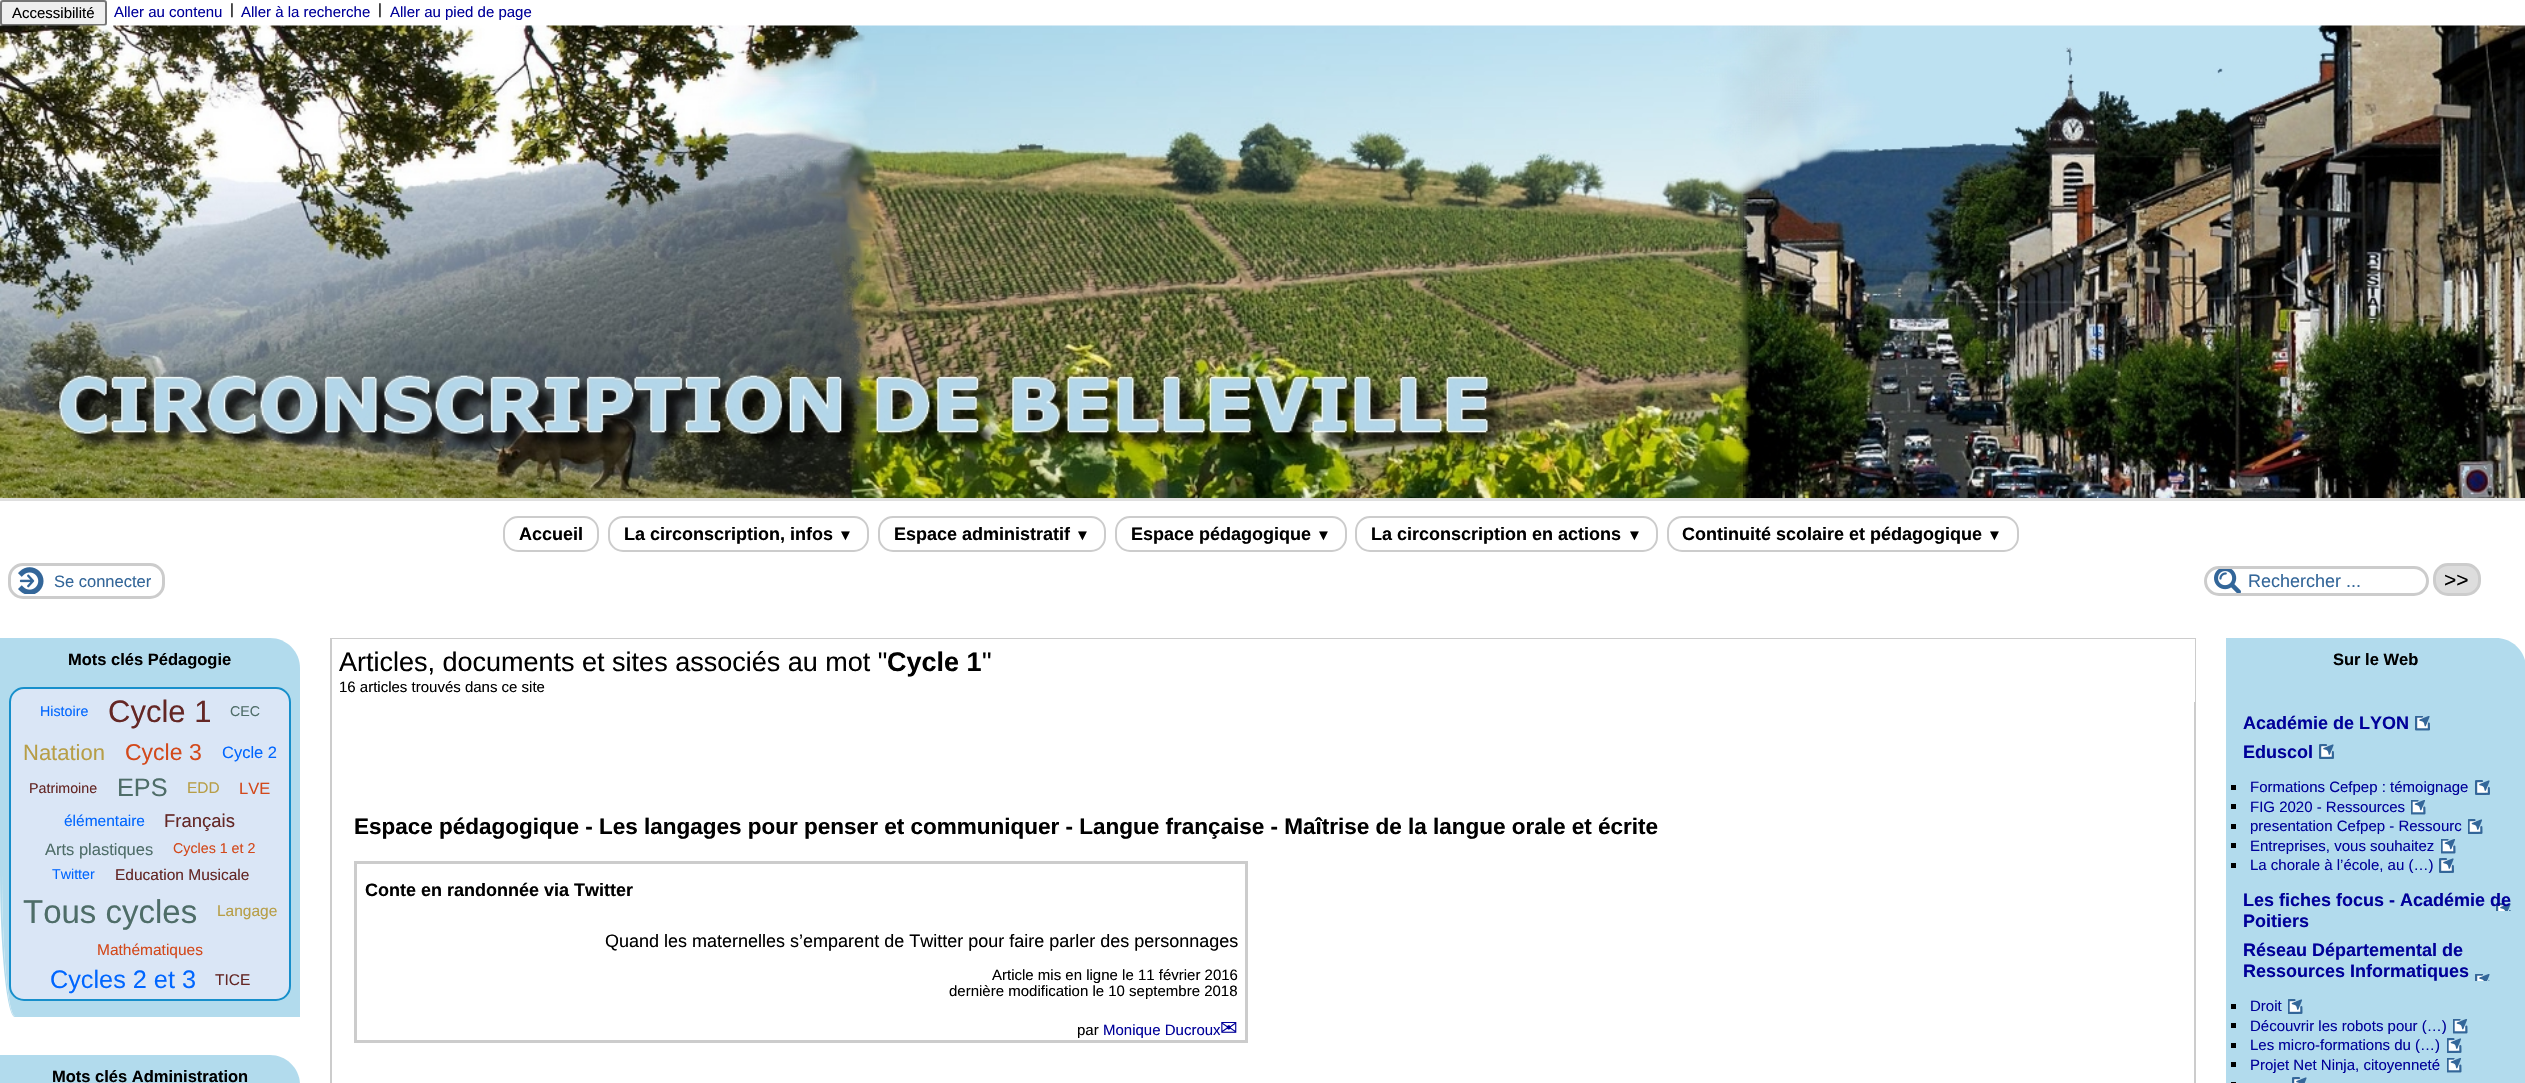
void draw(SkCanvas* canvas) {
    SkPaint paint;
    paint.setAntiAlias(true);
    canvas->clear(0xFFFFFFFF);
    paint.setColor(0xFFDFDFDF);
    canvas->drawRect(SkRect::MakeXYWH(0, 498, 2525, 3), paint);
    paint.setColor(0xFFEFEFEF);
    canvas->drawRoundRect(SkRect::MakeXYWH(1, 1, 105, 24), 2, 2, paint);
    paint.setStyle(SkPaint::kStroke_Style);
    paint.setStrokeWidth(2);
    paint.setColor(0xFF767676);
    canvas->drawRoundRect(SkRect::MakeXYWH(1, 1, 105, 24), 2, 2, paint);
    SkFont font1(fontMgr->matchFamilyStyle("Liberation Sans", SkFontStyle::Normal()), 15);
    font1.setSubpixel(true);
    paint.setStyle(SkPaint::kFill_Style);
    paint.setColor(0xFF000000);
    canvas->drawString("Accessibilité", 12, 18, font1, paint);
    paint.setColor(0xFF000099);
    canvas->drawString("Aller au contenu", 114, 17, font1, paint);
    paint.setColor(0xFF000000);
    canvas->drawString("|", 230, 14, font1, paint);
    paint.setColor(0xFF000099);
    canvas->drawString("Aller à la recherche", 241, 17, font1, paint);
    paint.setColor(0xFF000000);
    canvas->drawString("|", 378, 14, font1, paint);
    paint.setColor(0xFF000099);
    canvas->drawString("Aller au pied de page", 390, 17, font1, paint);
    canvas->drawImageRect(SkImages::DeferredFromEncodedData(SkData::MakeFromFileName("img1.png")), SkRect::MakeXYWH(0, 25, 2525, 473), SkSamplingOptions());
    paint.setStyle(SkPaint::kStroke_Style);
    paint.setColor(0xFFCCCCCC);
    canvas->drawRoundRect(SkRect::MakeXYWH(504, 517, 94, 34), 14, 14, paint);
    SkFont font2(fontMgr->matchFamilyStyle("Liberation Sans", SkFontStyle::Bold()), 18);
    font2.setSubpixel(true);
    paint.setStyle(SkPaint::kFill_Style);
    paint.setColor(0xFF000000);
    canvas->drawString("Accueil", 519, 540, font2, paint);
    paint.setStyle(SkPaint::kStroke_Style);
    paint.setColor(0xFFCCCCCC);
    canvas->drawRoundRect(SkRect::MakeXYWH(609, 517, 259, 34), 14, 14, paint);
    paint.setStyle(SkPaint::kFill_Style);
    paint.setColor(0xFF000000);
    canvas->drawString("La circonscription, infos", 624, 540, font2, paint);
    SkFont font3(fontMgr->matchFamilyStyle("Liberation Sans", SkFontStyle::Bold()), 15);
    font3.setSubpixel(true);
    canvas->drawString("▼", 838, 540, font3, paint);
    paint.setStyle(SkPaint::kStroke_Style);
    paint.setColor(0xFFCCCCCC);
    canvas->drawRoundRect(SkRect::MakeXYWH(879, 517, 226, 34), 14, 14, paint);
    paint.setStyle(SkPaint::kFill_Style);
    paint.setColor(0xFF000000);
    canvas->drawString("Espace administratif", 894, 540, font2, paint);
    canvas->drawString("▼", 1075, 540, font3, paint);
    paint.setStyle(SkPaint::kStroke_Style);
    paint.setColor(0xFFCCCCCC);
    canvas->drawRoundRect(SkRect::MakeXYWH(1116, 517, 230, 34), 14, 14, paint);
    paint.setStyle(SkPaint::kFill_Style);
    paint.setColor(0xFF000000);
    canvas->drawString("Espace pédagogique", 1131, 540, font2, paint);
    canvas->drawString("▼", 1316, 540, font3, paint);
    paint.setStyle(SkPaint::kStroke_Style);
    paint.setColor(0xFFCCCCCC);
    canvas->drawRoundRect(SkRect::MakeXYWH(1356, 517, 301, 34), 14, 14, paint);
    paint.setStyle(SkPaint::kFill_Style);
    paint.setColor(0xFF000000);
    canvas->drawString("La circonscription en actions", 1371, 540, font2, paint);
    canvas->drawString("▼", 1627, 540, font3, paint);
    paint.setStyle(SkPaint::kStroke_Style);
    paint.setColor(0xFFCCCCCC);
    canvas->drawRoundRect(SkRect::MakeXYWH(1668, 517, 350, 34), 14, 14, paint);
    paint.setStyle(SkPaint::kFill_Style);
    paint.setColor(0xFF000000);
    canvas->drawString("Continuité scolaire et pédagogique", 1682, 540, font2, paint);
    canvas->drawString("▼", 1987, 540, font3, paint);
    canvas->drawImageRect(SkImages::DeferredFromEncodedData(SkData::MakeFromFileName("img2.png")), SkRect::MakeXYWH(18, 567, 26, 27), SkSamplingOptions());
    paint.setStyle(SkPaint::kStroke_Style);
    paint.setStrokeWidth(3);
    paint.setColor(0xFFCCCCCC);
    canvas->drawRoundRect(SkRect::MakeXYWH(9.5f, 564.5f, 154, 33), 13.5f, 13.5f, paint);
    SkFont font4(fontMgr->matchFamilyStyle("Liberation Sans", SkFontStyle::Normal()), 16.5f);
    font4.setSubpixel(true);
    paint.setStyle(SkPaint::kFill_Style);
    paint.setColor(0xFF336699);
    canvas->drawString("Se connecter", 54, 587, font4, paint);
    canvas->drawImageRect(SkImages::DeferredFromEncodedData(SkData::MakeFromFileName("img3.png")), SkRect::MakeXYWH(2214, 569, 27, 24), SkSamplingOptions());
    paint.setStyle(SkPaint::kStroke_Style);
    paint.setColor(0xFFCCCCCC);
    canvas->drawRoundRect(SkRect::MakeXYWH(2205.5f, 567.5f, 222, 27), 13.5f, 13.5f, paint);
    SkFont font5(fontMgr->matchFamilyStyle("Liberation Sans", SkFontStyle::Normal()), 18);
    font5.setSubpixel(true);
    paint.setStyle(SkPaint::kFill_Style);
    paint.setColor(0xFF336699);
    canvas->drawString("Rechercher ...", 2248, 587, font5, paint);
    paint.setColor(0xFFDDDDDD);
    canvas->drawRoundRect(SkRect::MakeXYWH(2434.5f, 564.5f, 45, 30), 13.5f, 13.5f, paint);
    paint.setStyle(SkPaint::kStroke_Style);
    paint.setColor(0xFFCCCCCC);
    canvas->drawRoundRect(SkRect::MakeXYWH(2434.5f, 564.5f, 45, 30), 13.5f, 13.5f, paint);
    SkFont font6(fontMgr->matchFamilyStyle("Liberation Sans", SkFontStyle::Normal()), 21);
    font6.setSubpixel(true);
    paint.setStyle(SkPaint::kFill_Style);
    paint.setColor(0xFF000000);
    canvas->drawString(">>", 2444, 587, font6, paint);
    paint.setColor(0xFFB2DBED);
    canvas->drawPath(SkPathBuilder().moveTo(0, 638).lineTo(270, 638).cubicTo(286.5f, 638, 300, 651.5f, 300, 668).lineTo(300, 680).lineTo(0, 680).close().detach(), paint);
    SkFont font7(fontMgr->matchFamilyStyle("Liberation Sans", SkFontStyle::Bold()), 16.5f);
    font7.setSubpixel(true);
    paint.setColor(0xFF000000);
    canvas->drawString("Mots clés Pédagogie", 68, 665, font7, paint);
    paint.setColor(0xFFB2DBED);
    canvas->drawPath(SkPathBuilder().moveTo(2, 680).lineTo(298, 680).lineTo(298, 1016).lineTo(15, 1016).cubicTo(8, 1016, 2, 949, 2, 867).close().detach(), paint);
    canvas->drawPath(SkPathBuilder(SkPathFillType::kEvenOdd).moveTo(0, 680).lineTo(300, 680).lineTo(300, 1017).lineTo(15, 1017).cubicTo(7, 1017, 0, 950, 0, 867).close().moveTo(2, 680).lineTo(298, 680).lineTo(298, 1016).lineTo(15, 1016).cubicTo(8, 1016, 2, 949, 2, 867).close().detach(), paint);
    paint.setColor(0xFFDAE6F6);
    canvas->drawRoundRect(SkRect::MakeXYWH(10, 688, 280, 312), 14, 14, paint);
    paint.setStyle(SkPaint::kStroke_Style);
    paint.setStrokeWidth(2);
    paint.setColor(0xFF178FCB);
    canvas->drawRoundRect(SkRect::MakeXYWH(10, 688, 280, 312), 14, 14, paint);
    SkFont font8(fontMgr->matchFamilyStyle("Liberation Sans", SkFontStyle::Normal()), 14.25f);
    font8.setSubpixel(true);
    paint.setStyle(SkPaint::kFill_Style);
    paint.setColor(0xFF0066FF);
    canvas->drawString("Histoire", 40, 716, font8, paint);
    SkFont font9(fontMgr->matchFamilyStyle("Liberation Sans", SkFontStyle::Normal()), 31);
    font9.setSubpixel(true);
    paint.setColor(0xFF642725);
    canvas->drawString("Cycle 1", 108, 722, font9, paint);
    paint.setColor(0xFF4E6D68);
    canvas->drawString("CEC", 230, 716, font8, paint);
    SkFont font10(fontMgr->matchFamilyStyle("Liberation Sans", SkFontStyle::Normal()), 22);
    font10.setSubpixel(true);
    paint.setColor(0xFFB79E47);
    canvas->drawString("Natation", 23, 760, font10, paint);
    SkFont font11(fontMgr->matchFamilyStyle("Liberation Sans", SkFontStyle::Normal()), 23);
    font11.setSubpixel(true);
    paint.setColor(0xFFD3491B);
    canvas->drawString("Cycle 3", 125, 760, font11, paint);
    paint.setColor(0xFF0066FF);
    canvas->drawString("Cycle 2", 222, 758, font4, paint);
    paint.setColor(0xFF642725);
    canvas->drawString("Patrimoine", 29, 793, font8, paint);
    SkFont font12(fontMgr->matchFamilyStyle("Liberation Sans", SkFontStyle::Normal()), 25.25f);
    font12.setSubpixel(true);
    paint.setColor(0xFF4E6D68);
    canvas->drawString("EPS", 117, 796, font12, paint);
    SkFont font13(fontMgr->matchFamilyStyle("Liberation Sans", SkFontStyle::Normal()), 15.5f);
    font13.setSubpixel(true);
    paint.setColor(0xFFB79E47);
    canvas->drawString("EDD", 187, 793, font13, paint);
    paint.setColor(0xFFD3491B);
    canvas->drawString("LVE", 239, 794, font4, paint);
    paint.setColor(0xFF0066FF);
    canvas->drawString("élémentaire", 64, 826, font13, paint);
    SkFont font14(fontMgr->matchFamilyStyle("Liberation Sans", SkFontStyle::Normal()), 18.5f);
    font14.setSubpixel(true);
    paint.setColor(0xFF642725);
    canvas->drawString("Français", 164, 827, font14, paint);
    paint.setColor(0xFF4E6D68);
    canvas->drawString("Arts plastiques", 45, 855, font4, paint);
    paint.setColor(0xFFD3491B);
    canvas->drawString("Cycles 1 et 2", 173, 853, font8, paint);
    paint.setColor(0xFF0066FF);
    canvas->drawString("Twitter", 52, 879, font8, paint);
    paint.setColor(0xFF642725);
    canvas->drawString("Education Musicale", 115, 880, font13, paint);
    SkFont font15(fontMgr->matchFamilyStyle("Liberation Sans", SkFontStyle::Normal()), 33);
    font15.setSubpixel(true);
    paint.setColor(0xFF4E6D68);
    canvas->drawString("Tous cycles", 23, 923, font15, paint);
    paint.setColor(0xFFB79E47);
    canvas->drawString("Langage", 217, 916, font13, paint);
    paint.setColor(0xFFD3491B);
    canvas->drawString("Mathématiques", 97, 955, font13, paint);
    paint.setColor(0xFF0066FF);
    canvas->drawString("Cycles 2 et 3", 50, 988, font12, paint);
    paint.setColor(0xFF642725);
    canvas->drawString("TICE", 215, 985, font13, paint);
    paint.setColor(0xFFB2DBED);
    canvas->drawPath(SkPathBuilder().moveTo(0, 1055).lineTo(270, 1055).cubicTo(286.5f, 1055, 300, 1068.5f, 300, 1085).lineTo(300, 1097).lineTo(0, 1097).close().detach(), paint);
    paint.setColor(0xFF000000);
    canvas->drawString("Mots clés Administration", 52, 1082, font7, paint);
    paint.setStyle(SkPaint::kStroke_Style);
    paint.setColor(0xFFCCCCCC);
    canvas->drawRect(SkRect::MakeXYWH(331, 639, 1864, 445), paint);
    paint.setStyle(SkPaint::kFill_Style);
    paint.setColor(0xFFFFFFFF);
    canvas->drawRect(SkRect::MakeXYWH(332, 639, 1863, 63), paint);
    SkFont font16(fontMgr->matchFamilyStyle("Liberation Sans", SkFontStyle::Normal()), 27);
    font16.setSubpixel(true);
    paint.setColor(0xFF000000);
    canvas->drawString("Articles, documents et sites associés au mot \"", 339, 671, font16, paint);
    SkFont font17(fontMgr->matchFamilyStyle("Liberation Sans", SkFontStyle::Bold()), 27);
    font17.setSubpixel(true);
    canvas->drawString("Cycle 1", 887, 671, font17, paint);
    canvas->drawString("\"", 982, 671, font16, paint);
    canvas->drawString("16 articles trouvés dans ce site", 339, 692, font1, paint);
    SkFont font18(fontMgr->matchFamilyStyle("Liberation Sans", SkFontStyle::Bold()), 22.5f);
    font18.setSubpixel(true);
    canvas->drawString("Espace pédagogique - Les langages pour penser et communiquer - Langue française - Maîtrise de la langue orale et écrite", 354, 834, font18, paint);
    paint.setStyle(SkPaint::kStroke_Style);
    paint.setStrokeWidth(3);
    paint.setColor(0xFFCCCCCC);
    canvas->drawRect(SkRect::MakeXYWH(355.5f, 862.5f, 891, 179), paint);
    paint.setStyle(SkPaint::kFill_Style);
    paint.setColor(0xFF000000);
    canvas->drawString("Conte en randonnée via Twitter", 365, 896, font2, paint);
    canvas->drawString("Quand les maternelles s’emparent de Twitter pour faire parler des personnages", 605, 947, font5, paint);
    canvas->drawString("Article mis en ligne le 11 février 2016", 992, 980, font1, paint);
    canvas->drawString("dernière modification le 10 septembre 2018", 949, 996, font1, paint);
    canvas->drawString("par", 1077, 1035, font1, paint);
    paint.setColor(0xFF000099);
    canvas->drawString("Monique Ducroux", 1103, 1035, font1, paint);
    SkFont font19(fontMgr->matchFamilyStyle("DejaVu Sans", SkFontStyle::Normal()), 21);
    font19.setSubpixel(true);
    canvas->drawString("✉", 1220, 1035, font19, paint);
    paint.setColor(0xFFB2DBED);
    canvas->drawPath(SkPathBuilder().moveTo(2226, 638).lineTo(2496, 638).cubicTo(2512.5f, 638, 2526, 651.5f, 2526, 668).lineTo(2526, 680).lineTo(2226, 680).close().detach(), paint);
    paint.setColor(0xFF000000);
    canvas->drawString("Sur le Web", 2333, 665, font7, paint);
    paint.setColor(0xFFB2DBED);
    canvas->drawPath(SkPathBuilder().moveTo(2228, 680).lineTo(2524, 680).lineTo(2524, 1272).lineTo(2241, 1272).cubicTo(2234, 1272, 2228, 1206, 2228, 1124).close().detach(), paint);
    canvas->drawPath(SkPathBuilder(SkPathFillType::kEvenOdd).moveTo(2226, 680).lineTo(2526, 680).lineTo(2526, 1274).lineTo(2241, 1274).cubicTo(2233, 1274, 2226, 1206, 2226, 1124).close().moveTo(2228, 680).lineTo(2524, 680).lineTo(2524, 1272).lineTo(2241, 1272).cubicTo(2234, 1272, 2228, 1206, 2228, 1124).close().detach(), paint);
    paint.setColor(0xFF000099);
    canvas->drawString("Académie de LYON", 2243, 729, font2, paint);
    canvas->drawImageRect(SkImages::DeferredFromEncodedData(SkData::MakeFromFileName("img4.png")), SkRect::MakeXYWH(2415, 716, 15, 15), SkSamplingOptions());
    canvas->drawString("Eduscol", 2243, 758, font2, paint);
    canvas->drawImageRect(SkImages::DeferredFromEncodedData(SkData::MakeFromFileName("img5.png")), SkRect::MakeXYWH(2319, 744, 15, 15), SkSamplingOptions());
    paint.setColor(0xFF000000);
    canvas->drawRect(SkRect::MakeXYWH(2231, 785, 5, 5), paint);
    paint.setColor(0xFF000099);
    canvas->drawString("Formations Cefpep : témoignage", 2250, 792, font1, paint);
    canvas->drawImageRect(SkImages::DeferredFromEncodedData(SkData::MakeFromFileName("img5.png")), SkRect::MakeXYWH(2475, 780, 15, 15), SkSamplingOptions());
    paint.setColor(0xFF000000);
    canvas->drawRect(SkRect::MakeXYWH(2231, 804, 5, 5), paint);
    paint.setColor(0xFF000099);
    canvas->drawString("FIG 2020 - Ressources", 2250, 812, font1, paint);
    canvas->drawImageRect(SkImages::DeferredFromEncodedData(SkData::MakeFromFileName("img6.png")), SkRect::MakeXYWH(2411, 800, 15, 15), SkSamplingOptions());
    paint.setColor(0xFF000000);
    canvas->drawRect(SkRect::MakeXYWH(2231, 824, 5, 5), paint);
    paint.setColor(0xFF000099);
    canvas->drawString("presentation Cefpep - Ressourc", 2250, 831, font1, paint);
    canvas->drawImageRect(SkImages::DeferredFromEncodedData(SkData::MakeFromFileName("img7.png")), SkRect::MakeXYWH(2468, 819, 15, 15), SkSamplingOptions());
    paint.setColor(0xFF000000);
    canvas->drawRect(SkRect::MakeXYWH(2231, 843, 5, 5), paint);
    paint.setColor(0xFF000099);
    canvas->drawString("Entreprises, vous souhaitez", 2250, 851, font1, paint);
    canvas->drawImageRect(SkImages::DeferredFromEncodedData(SkData::MakeFromFileName("img6.png")), SkRect::MakeXYWH(2441, 839, 15, 15), SkSamplingOptions());
    paint.setColor(0xFF000000);
    canvas->drawRect(SkRect::MakeXYWH(2231, 863, 5, 5), paint);
    paint.setColor(0xFF000099);
    canvas->drawString("La chorale à l’école, au (…)", 2250, 870, font1, paint);
    canvas->drawImageRect(SkImages::DeferredFromEncodedData(SkData::MakeFromFileName("img5.png")), SkRect::MakeXYWH(2439, 858, 15, 15), SkSamplingOptions());
    canvas->drawImageRect(SkImages::DeferredFromEncodedData(SkData::MakeFromFileName("img8.png")), SkRect::MakeXYWH(2496, 903, 15, 8), SkSamplingOptions());
    canvas->drawString("Les fiches focus - Académie de", 2243, 906, font2, paint);
    canvas->drawString("Poitiers", 2243, 927, font2, paint);
    canvas->drawString("Réseau Départemental de", 2243, 956, font2, paint);
    canvas->drawString("Ressources Informatiques", 2243, 977, font2, paint);
    canvas->drawImageRect(SkImages::DeferredFromEncodedData(SkData::MakeFromFileName("img9.png")), SkRect::MakeXYWH(2475, 974, 15, 7), SkSamplingOptions());
    paint.setColor(0xFF000000);
    canvas->drawRect(SkRect::MakeXYWH(2231, 1004, 5, 5), paint);
    paint.setColor(0xFF000099);
    canvas->drawString("Droit", 2250, 1011, font1, paint);
    canvas->drawImageRect(SkImages::DeferredFromEncodedData(SkData::MakeFromFileName("img7.png")), SkRect::MakeXYWH(2288, 999, 15, 15), SkSamplingOptions());
    paint.setColor(0xFF000000);
    canvas->drawRect(SkRect::MakeXYWH(2231, 1023, 5, 5), paint);
    paint.setColor(0xFF000099);
    canvas->drawString("Découvrir les robots pour (…)", 2250, 1031, font1, paint);
    canvas->drawImageRect(SkImages::DeferredFromEncodedData(SkData::MakeFromFileName("img6.png")), SkRect::MakeXYWH(2453, 1019, 15, 15), SkSamplingOptions());
    paint.setColor(0xFF000000);
    canvas->drawRect(SkRect::MakeXYWH(2231, 1043, 5, 5), paint);
    paint.setColor(0xFF000099);
    canvas->drawString("Les micro-formations du (…)", 2250, 1050, font1, paint);
    canvas->drawImageRect(SkImages::DeferredFromEncodedData(SkData::MakeFromFileName("img7.png")), SkRect::MakeXYWH(2447, 1038, 15, 15), SkSamplingOptions());
    paint.setColor(0xFF000000);
    canvas->drawRect(SkRect::MakeXYWH(2231, 1062, 5, 5), paint);
    paint.setColor(0xFF000099);
    canvas->drawString("Projet Net Ninja, citoyenneté", 2250, 1070, font1, paint);
    canvas->drawImageRect(SkImages::DeferredFromEncodedData(SkData::MakeFromFileName("img6.png")), SkRect::MakeXYWH(2447, 1058, 15, 15), SkSamplingOptions());
    paint.setColor(0xFF000000);
    canvas->drawRect(SkRect::MakeXYWH(2231, 1082, 5, 1), paint);
    canvas->drawImageRect(SkImages::DeferredFromEncodedData(SkData::MakeFromFileName("img10.png")), SkRect::MakeXYWH(2292, 1077, 15, 6), SkSamplingOptions());
}
